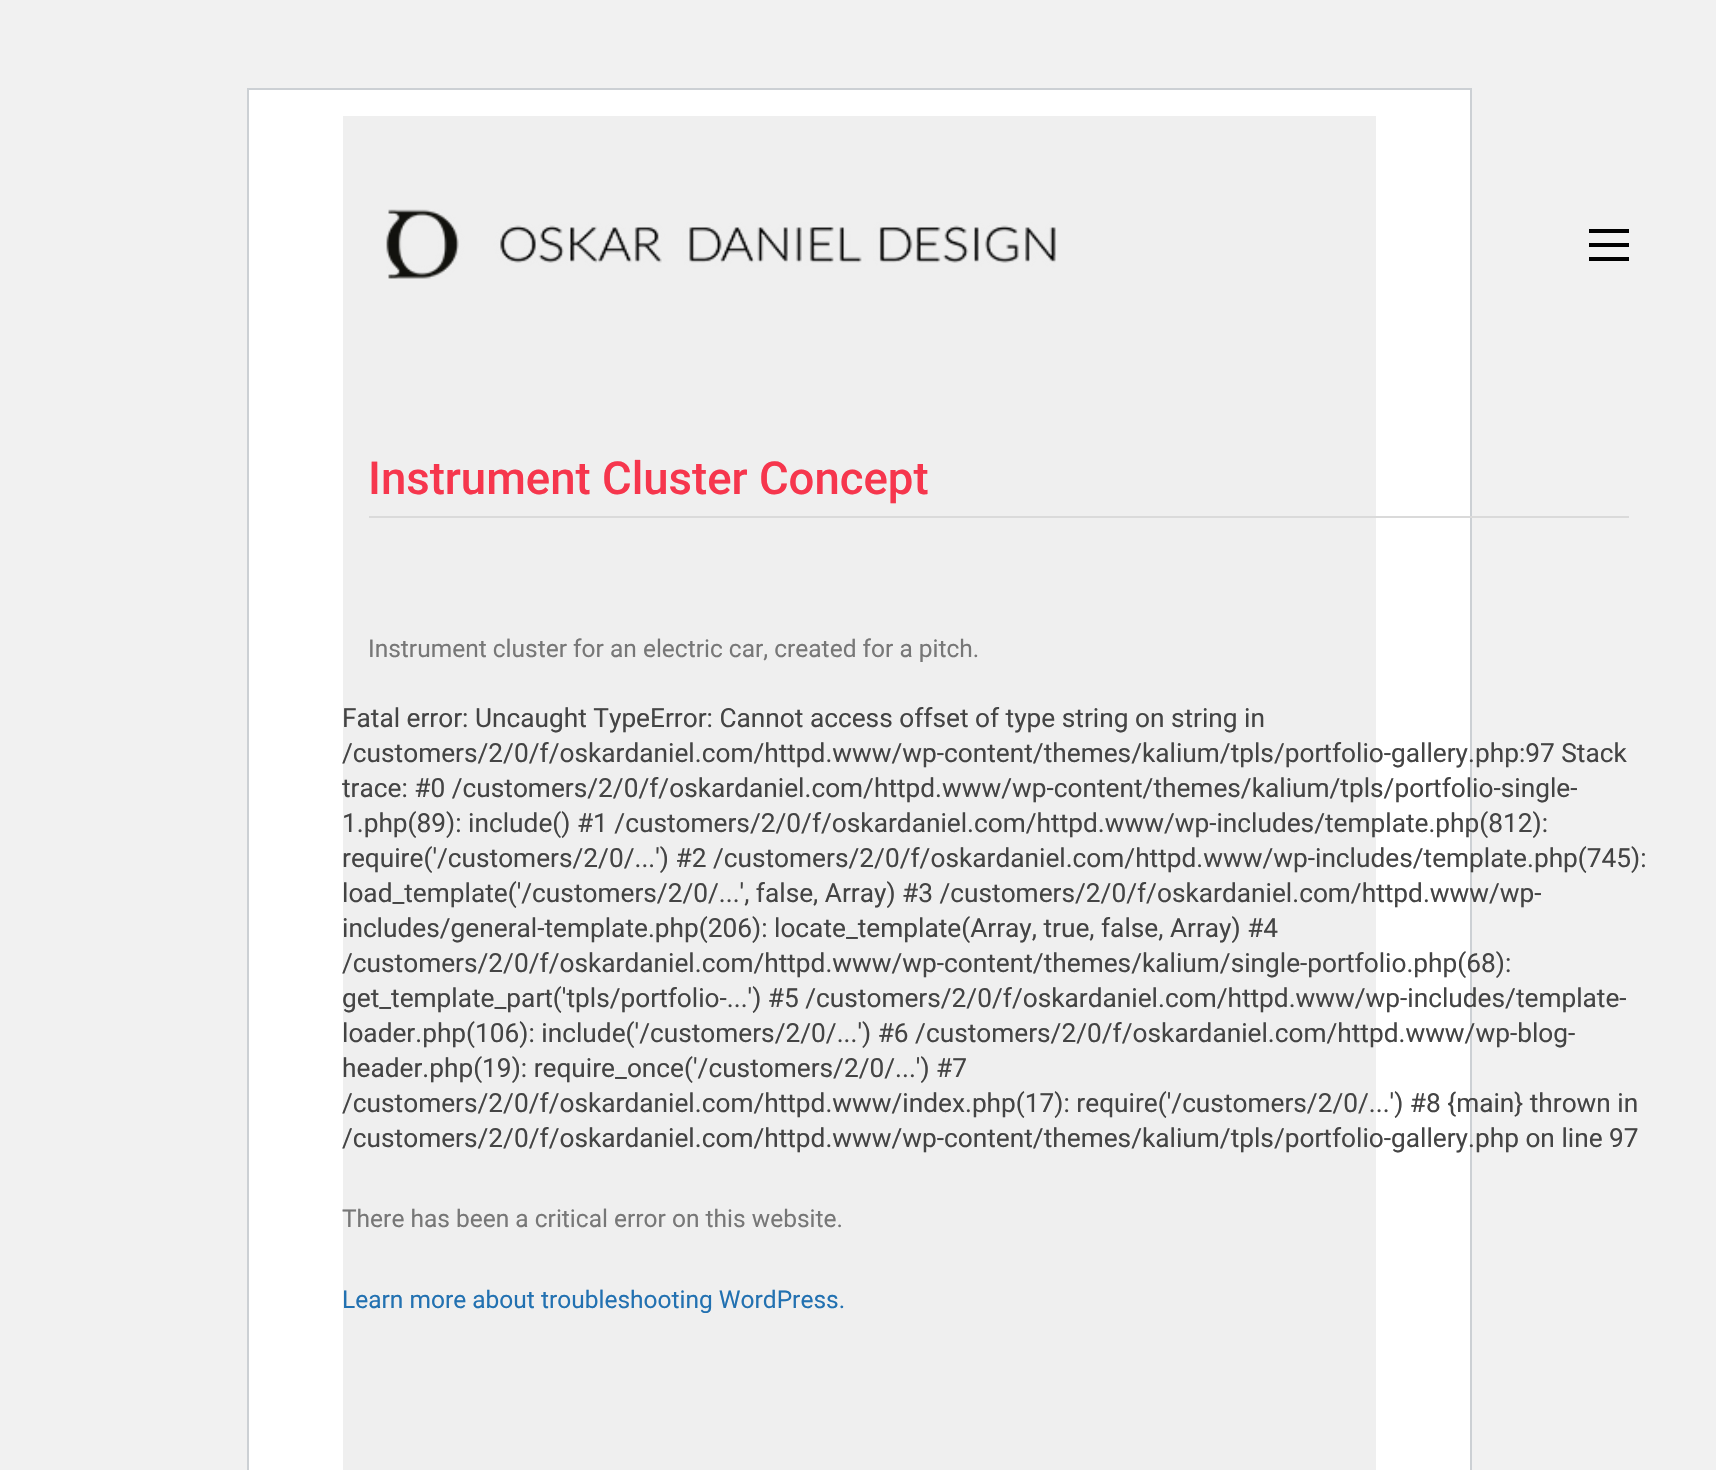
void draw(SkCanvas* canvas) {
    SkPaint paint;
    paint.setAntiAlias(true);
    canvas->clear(0xFFF1F1F1);
    paint.setColor(0xFFFFFFFF);
    canvas->drawRect(SkRect::MakeXYWH(248, 89, 1223, 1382), paint);
    paint.setStyle(SkPaint::kStroke_Style);
    paint.setStrokeWidth(2);
    paint.setColor(0xFFCCD0D4);
    canvas->drawRect(SkRect::MakeXYWH(248, 89, 1223, 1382), paint);
    paint.setStyle(SkPaint::kFill_Style);
    paint.setColor(0xFFEFEFEF);
    canvas->drawRect(SkRect::MakeXYWH(343, 116, 1033, 1354), paint);
    canvas->drawImageRect(SkImages::DeferredFromEncodedData(SkData::MakeFromFileName("img1.png")), SkRect::MakeXYWH(386, 209, 670, 70), SkSamplingOptions());
    paint.setColor(0xFF000000);
    canvas->drawRect(SkRect::MakeXYWH(1589, 229, 40, 4), paint);
    canvas->drawRect(SkRect::MakeXYWH(1589, 243, 40, 4), paint);
    canvas->drawRect(SkRect::MakeXYWH(1589, 257, 40, 4), paint);
    paint.setColor(0xFFDADADA);
    canvas->drawRect(SkRect::MakeXYWH(369, 516, 1260, 2), paint);
    SkFont font1(fontMgr->matchFamilyStyle("Roboto", SkFontStyle(500, SkFontStyle::kNormal_Width, SkFontStyle::kUpright_Slant)), 45.5f);
    font1.setSubpixel(true);
    paint.setColor(0xFFF6364D);
    canvas->drawString("Instrument Cluster Concept", 368, 494, font1, paint);
    SkFont font2(fontMgr->matchFamilyStyle("Roboto", SkFontStyle::Normal()), 24.5f);
    font2.setSubpixel(true);
    paint.setColor(0xFF777777);
    canvas->drawString("Instrument cluster for an electric car, created for a pitch.", 368, 657, font2, paint);
    SkFont font3(fontMgr->matchFamilyStyle("Roboto", SkFontStyle::Normal()), 26.25f);
    font3.setSubpixel(true);
    paint.setColor(0xFF444444);
    canvas->drawString("Fatal error: Uncaught TypeError: Cannot access offset of type string on string in", 342, 727, font3, paint);
    canvas->drawString("/customers/2/0/f/oskardaniel.com/httpd.www/wp-content/themes/kalium/tpls/portfolio-gallery.php:97 Stack", 342, 762, font3, paint);
    canvas->drawString("trace: #0 /customers/2/0/f/oskardaniel.com/httpd.www/wp-content/themes/kalium/tpls/portfolio-single-", 342, 797, font3, paint);
    canvas->drawString("1.php(89): include() #1 /customers/2/0/f/oskardaniel.com/httpd.www/wp-includes/template.php(812):", 342, 832, font3, paint);
    canvas->drawString("require('/customers/2/0/...') #2 /customers/2/0/f/oskardaniel.com/httpd.www/wp-includes/template.php(745):", 342, 867, font3, paint);
    canvas->drawString("load_template('/customers/2/0/...', false, Array) #3 /customers/2/0/f/oskardaniel.com/httpd.www/wp-", 342, 902, font3, paint);
    canvas->drawString("includes/general-template.php(206): locate_template(Array, true, false, Array) #4", 342, 937, font3, paint);
    canvas->drawString("/customers/2/0/f/oskardaniel.com/httpd.www/wp-content/themes/kalium/single-portfolio.php(68):", 342, 972, font3, paint);
    canvas->drawString("get_template_part('tpls/portfolio-...') #5 /customers/2/0/f/oskardaniel.com/httpd.www/wp-includes/template-", 342, 1007, font3, paint);
    canvas->drawString("loader.php(106): include('/customers/2/0/...') #6 /customers/2/0/f/oskardaniel.com/httpd.www/wp-blog-", 342, 1042, font3, paint);
    canvas->drawString("header.php(19): require_once('/customers/2/0/...') #7", 342, 1077, font3, paint);
    canvas->drawString("/customers/2/0/f/oskardaniel.com/httpd.www/index.php(17): require('/customers/2/0/...') #8 {main} thrown in", 342, 1112, font3, paint);
    canvas->drawString("/customers/2/0/f/oskardaniel.com/httpd.www/wp-content/themes/kalium/tpls/portfolio-gallery.php on line 97", 342, 1147, font3, paint);
    paint.setColor(0xFF777777);
    canvas->drawString("There has been a critical error on this website.", 342, 1227, font2, paint);
    paint.setColor(0xFF2271B1);
    canvas->drawString("Learn more about troubleshooting WordPress.", 342, 1308, font2, paint);
}
